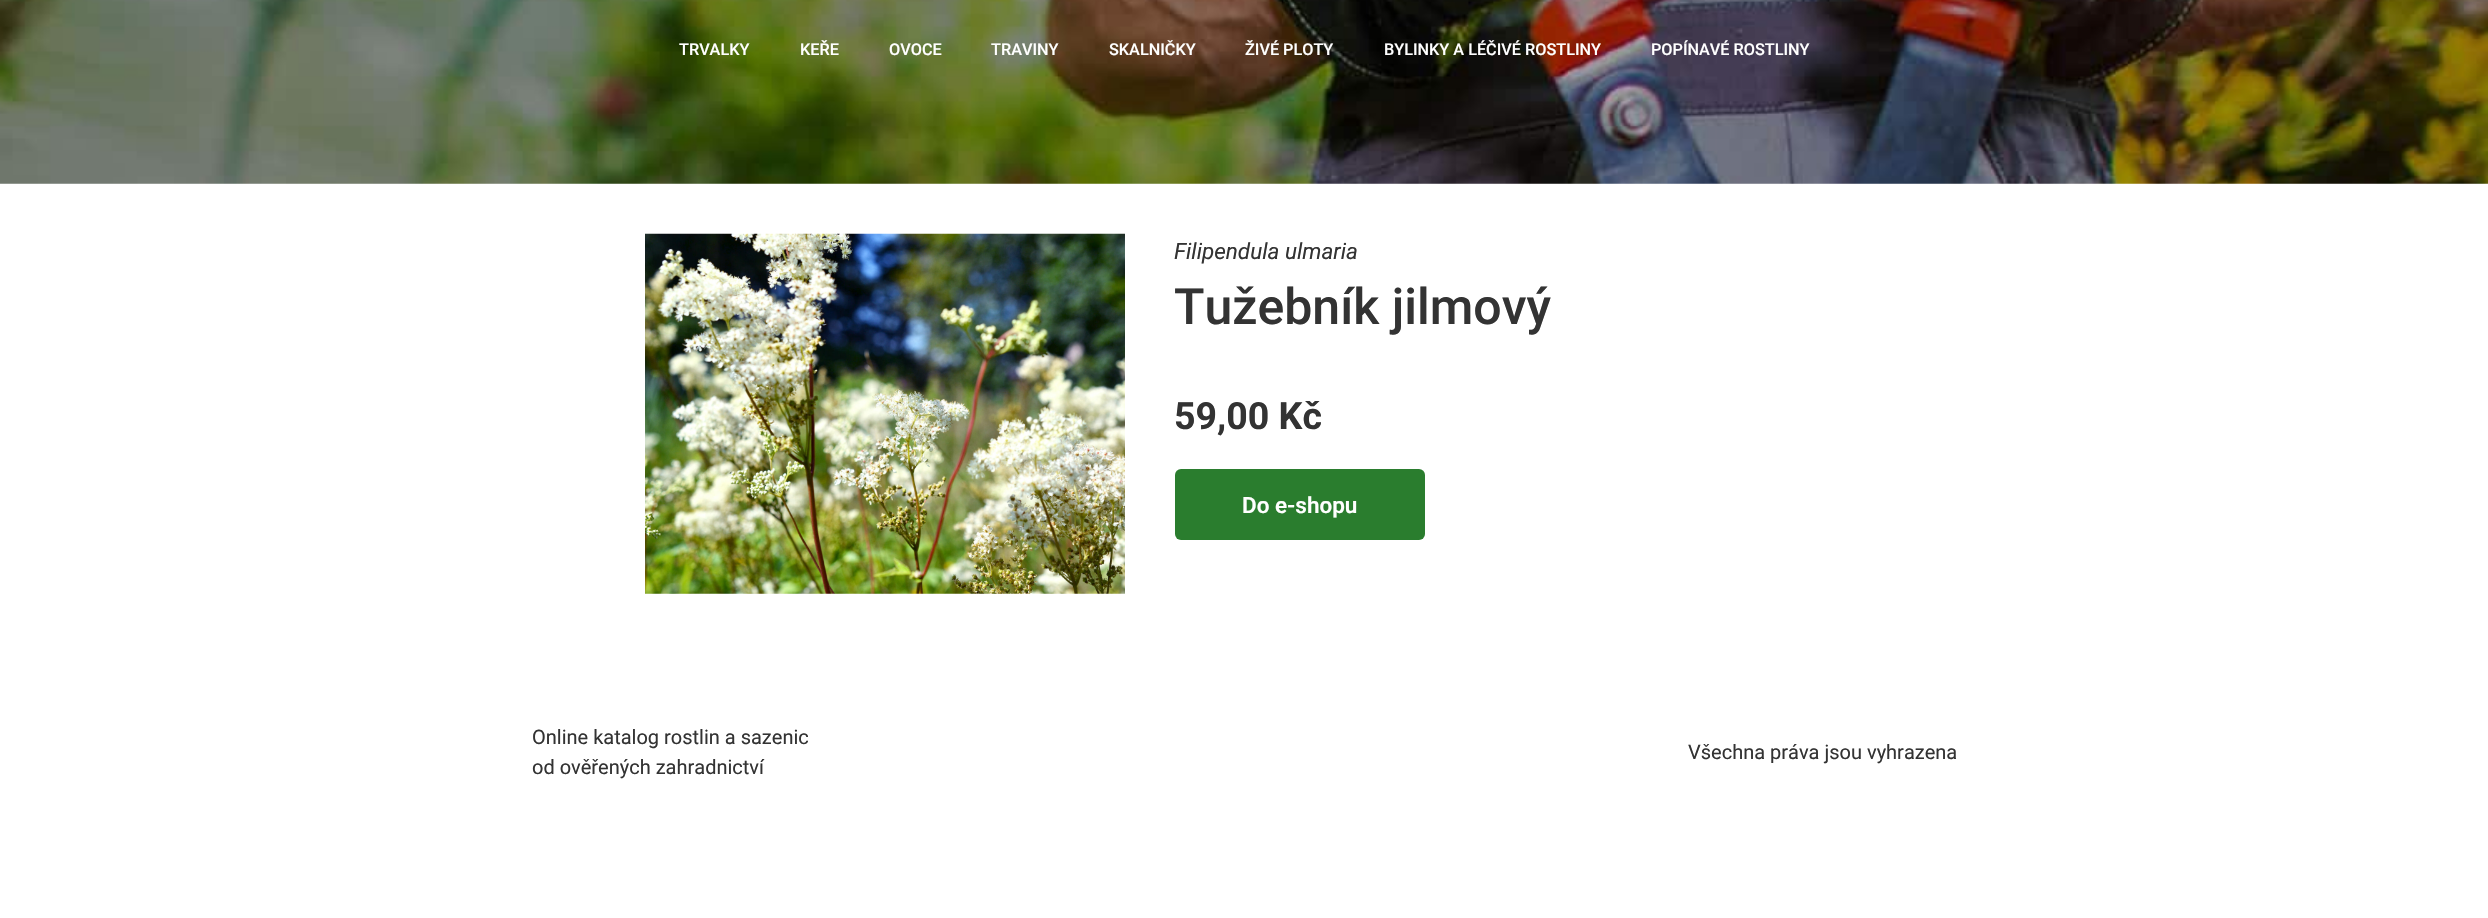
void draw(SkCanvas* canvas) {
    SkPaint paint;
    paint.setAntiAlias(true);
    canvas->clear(0xFFFFFFFF);
    canvas->drawImageRect(SkImages::DeferredFromEncodedData(SkData::MakeFromFileName("img1.png")), SkRect::MakeXYWH(0, 0, 2488, 184), SkSamplingOptions());
    SkFont font1(fontMgr->matchFamilyStyle("Roboto", SkFontStyle(500, SkFontStyle::kNormal_Width, SkFontStyle::kUpright_Slant)), 16.25f);
    font1.setSubpixel(true);
    paint.setColor(0xFFFFFFFF);
    canvas->drawString("TRVALKY", 679, 55, font1, paint);
    canvas->drawString("KEŘE", 800, 55, font1, paint);
    canvas->drawString("OVOCE", 889, 55, font1, paint);
    canvas->drawString("TRAVINY", 991, 55, font1, paint);
    canvas->drawString("SKALNIČKY", 1109, 55, font1, paint);
    canvas->drawString("ŽIVÉ PLOTY", 1245, 55, font1, paint);
    canvas->drawString("BYLINKY A LÉČIVÉ ROSTLINY", 1384, 55, font1, paint);
    canvas->drawString("POPÍNAVÉ ROSTLINY", 1651, 55, font1, paint);
    canvas->drawImageRect(SkImages::DeferredFromEncodedData(SkData::MakeFromFileName("img2.png")), SkRect::MakeXYWH(645, 233, 480, 361), SkSamplingOptions());
    SkFont font2(fontMgr->matchFamilyStyle("Roboto", SkFontStyle::Italic()), 22.5f);
    font2.setSubpixel(true);
    paint.setColor(0xFF333333);
    canvas->drawString("Filipendula ulmaria", 1174, 259, font2, paint);
    SkFont font3(fontMgr->matchFamilyStyle("Roboto", SkFontStyle(500, SkFontStyle::kNormal_Width, SkFontStyle::kUpright_Slant)), 50);
    font3.setSubpixel(true);
    canvas->drawString("Tužebník jilmový", 1174, 324, font3, paint);
    SkFont font4(fontMgr->matchFamilyStyle("Roboto", SkFontStyle::Bold()), 37.5f);
    font4.setSubpixel(true);
    canvas->drawString("59,00 Kč", 1174, 429, font4, paint);
    paint.setColor(0xFF2A7D2E);
    canvas->drawRoundRect(SkRect::MakeXYWH(1175, 469, 250, 71), 6, 6, paint);
    SkFont font5(fontMgr->matchFamilyStyle("Roboto", SkFontStyle(600, SkFontStyle::kNormal_Width, SkFontStyle::kUpright_Slant)), 22.5f);
    font5.setSubpixel(true);
    paint.setColor(0xFFFFFFFF);
    canvas->drawString("Do e-shopu", 1242, 513, font5, paint);
    SkFont font6(fontMgr->matchFamilyStyle("Roboto", SkFontStyle::Normal()), 20);
    font6.setSubpixel(true);
    paint.setColor(0xFF333333);
    canvas->drawString("Online katalog rostlin a sazenic", 532, 744, font6, paint);
    canvas->drawString("od ověřených zahradnictví", 532, 774, font6, paint);
    canvas->drawString("Všechna práva jsou vyhrazena", 1688, 759, font6, paint);
}
